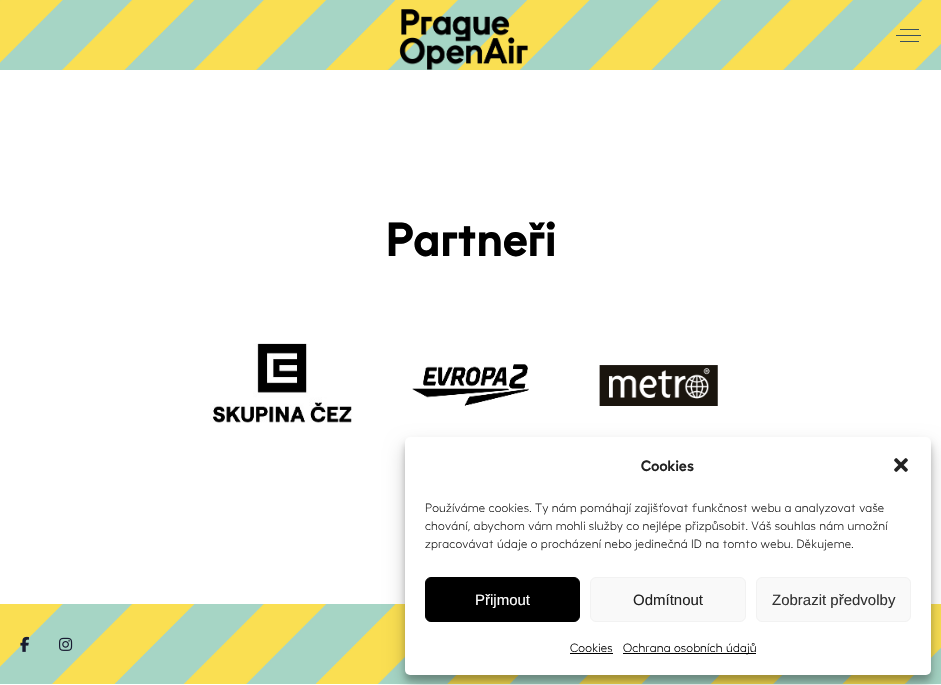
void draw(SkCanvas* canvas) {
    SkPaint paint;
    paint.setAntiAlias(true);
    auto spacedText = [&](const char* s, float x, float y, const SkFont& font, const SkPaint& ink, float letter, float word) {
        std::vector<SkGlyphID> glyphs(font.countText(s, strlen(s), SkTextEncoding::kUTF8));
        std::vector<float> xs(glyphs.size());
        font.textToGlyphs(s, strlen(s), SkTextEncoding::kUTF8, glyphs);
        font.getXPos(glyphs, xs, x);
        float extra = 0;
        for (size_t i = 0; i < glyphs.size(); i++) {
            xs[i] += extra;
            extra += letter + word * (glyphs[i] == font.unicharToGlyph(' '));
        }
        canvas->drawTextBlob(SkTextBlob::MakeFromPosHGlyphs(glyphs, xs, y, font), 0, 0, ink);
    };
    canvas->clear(0xFFFFFFFF);
    canvas->drawImageRect(SkImages::DeferredFromEncodedData(SkData::MakeFromFileName("img1.png")), SkRect::MakeXYWH(0, 0, 941, 70), SkSamplingOptions());
    canvas->drawImageRect(SkImages::DeferredFromEncodedData(SkData::MakeFromFileName("img2.png")), SkRect::MakeXYWH(399, 9, 129, 61), SkSamplingOptions());
    paint.setColor(0xFF3A505D);
    canvas->drawRect(SkRect::MakeXYWH(900, 29, 19, 1), paint);
    canvas->drawRect(SkRect::MakeXYWH(896, 35, 25, 1), paint);
    canvas->drawRect(SkRect::MakeXYWH(900, 41, 19, 1), paint);
    SkFont font1(fontMgr->matchFamilyStyle("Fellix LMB", SkFontStyle::Bold()), 48);
    font1.setSubpixel(true);
    paint.setColor(0xFF000000);
    spacedText("Partneři", 386, 256, font1, paint, 0.5f, 0);
    canvas->drawImageRect(SkImages::DeferredFromEncodedData(SkData::MakeFromFileName("img3.png")), SkRect::MakeXYWH(210, 343, 142, 80), SkSamplingOptions());
    canvas->drawImageRect(SkImages::DeferredFromEncodedData(SkData::MakeFromFileName("img4.png")), SkRect::MakeXYWH(412, 364, 117, 42), SkSamplingOptions());
    canvas->drawImageRect(SkImages::DeferredFromEncodedData(SkData::MakeFromFileName("img5.png")), SkRect::MakeXYWH(599, 365, 119, 41), SkSamplingOptions());
    canvas->drawImageRect(SkImages::DeferredFromEncodedData(SkData::MakeFromFileName("img6.png")), SkRect::MakeXYWH(0, 604, 941, 80), SkSamplingOptions());
    canvas->drawImageRect(SkImages::DeferredFromEncodedData(SkData::MakeFromFileName("img7.png")), SkRect::MakeXYWH(20, 636, 9, 16), SkSamplingOptions());
    canvas->drawImageRect(SkImages::DeferredFromEncodedData(SkData::MakeFromFileName("img8.png")), SkRect::MakeXYWH(59, 637, 14, 14), SkSamplingOptions());
    paint.setColor(0x3B000000);
    paint.setMaskFilter(SkMaskFilter::MakeBlur(kNormal_SkBlurStyle, 3));
    canvas->drawRoundRect(SkRect::MakeXYWH(405, 443, 526, 238), 5, 5, paint);
    paint.setMaskFilter(nullptr);
    paint.setColor(0x30000000);
    paint.setMaskFilter(SkMaskFilter::MakeBlur(kNormal_SkBlurStyle, 10));
    canvas->drawRoundRect(SkRect::MakeXYWH(405, 447, 526, 238), 5, 5, paint);
    paint.setMaskFilter(nullptr);
    paint.setColor(0xFFFFFFFF);
    canvas->drawRoundRect(SkRect::MakeXYWH(405, 437, 526, 238), 5, 5, paint);
    SkFont font2(fontMgr->matchFamilyStyle("Fellix LMB", SkFontStyle(600, SkFontStyle::kNormal_Width, SkFontStyle::kUpright_Slant)), 15);
    font2.setSubpixel(true);
    paint.setColor(0xFF222222);
    spacedText("Cookies", 641, 471, font2, paint, 0.2f, 0);
    canvas->drawImageRect(SkImages::DeferredFromEncodedData(SkData::MakeFromFileName("img9.png")), SkRect::MakeXYWH(894, 458, 14, 14), SkSamplingOptions());
    SkFont font3(fontMgr->matchFamilyStyle("Fellix LMB", SkFontStyle(300, SkFontStyle::kNormal_Width, SkFontStyle::kUpright_Slant)), 12);
    font3.setSubpixel(true);
    spacedText("Používáme cookies. Ty nám pomáhají zajišťovat funkčnost webu a analyzovat vaše", 425, 512, font3, paint, 0.2f, 0);
    spacedText("chování, abychom vám mohli služby co nejlépe přizpůsobit. Váš souhlas nám umožní", 425, 530, font3, paint, 0.2f, 0);
    spacedText("zpracovávat údaje o procházení nebo jedinečná ID na tomto webu. Děkujeme.", 425, 548, font3, paint, 0.2f, 0);
    paint.setColor(0xFF000000);
    canvas->drawRoundRect(SkRect::MakeXYWH(425.5f, 577.5f, 154, 44), 5.5f, 5.5f, paint);
    paint.setStyle(SkPaint::kStroke_Style);
    paint.setStrokeWidth(1);
    canvas->drawRoundRect(SkRect::MakeXYWH(425.5f, 577.5f, 154, 44), 5.5f, 5.5f, paint);
    SkFont font4(fontMgr->matchFamilyStyle("Liberation Sans", SkFontStyle::Normal()), 15);
    font4.setSubpixel(true);
    paint.setStyle(SkPaint::kFill_Style);
    paint.setColor(0xFFFFFFFF);
    canvas->drawString("Přijmout", 475, 605, font4, paint);
    paint.setColor(0xFFF9F9F9);
    canvas->drawRoundRect(SkRect::MakeXYWH(590.5f, 577.5f, 155, 44), 5.5f, 5.5f, paint);
    paint.setStyle(SkPaint::kStroke_Style);
    paint.setColor(0xFFF2F2F2);
    canvas->drawRoundRect(SkRect::MakeXYWH(590.5f, 577.5f, 155, 44), 5.5f, 5.5f, paint);
    paint.setStyle(SkPaint::kFill_Style);
    paint.setColor(0xFF222222);
    canvas->drawString("Odmítnout", 633, 605, font4, paint);
    paint.setColor(0xFFF9F9F9);
    canvas->drawRoundRect(SkRect::MakeXYWH(756.5f, 577.5f, 154, 44), 5.5f, 5.5f, paint);
    paint.setStyle(SkPaint::kStroke_Style);
    paint.setColor(0xFFF2F2F2);
    canvas->drawRoundRect(SkRect::MakeXYWH(756.5f, 577.5f, 154, 44), 5.5f, 5.5f, paint);
    paint.setStyle(SkPaint::kFill_Style);
    paint.setColor(0xFF333333);
    canvas->drawString("Zobrazit předvolby", 772, 605, font4, paint);
    paint.setColor(0xFF000000);
    spacedText("Cookies", 570, 652, font3, paint, 0.2f, 0);
    canvas->drawRect(SkRect::MakeXYWH(570, 653, 43, 1), paint);
    canvas->drawRect(SkRect::MakeXYWH(623, 653, 133, 1), paint);
    spacedText("Ochrana osobních údajů", 623, 652, font3, paint, 0.2f, 0);
}
